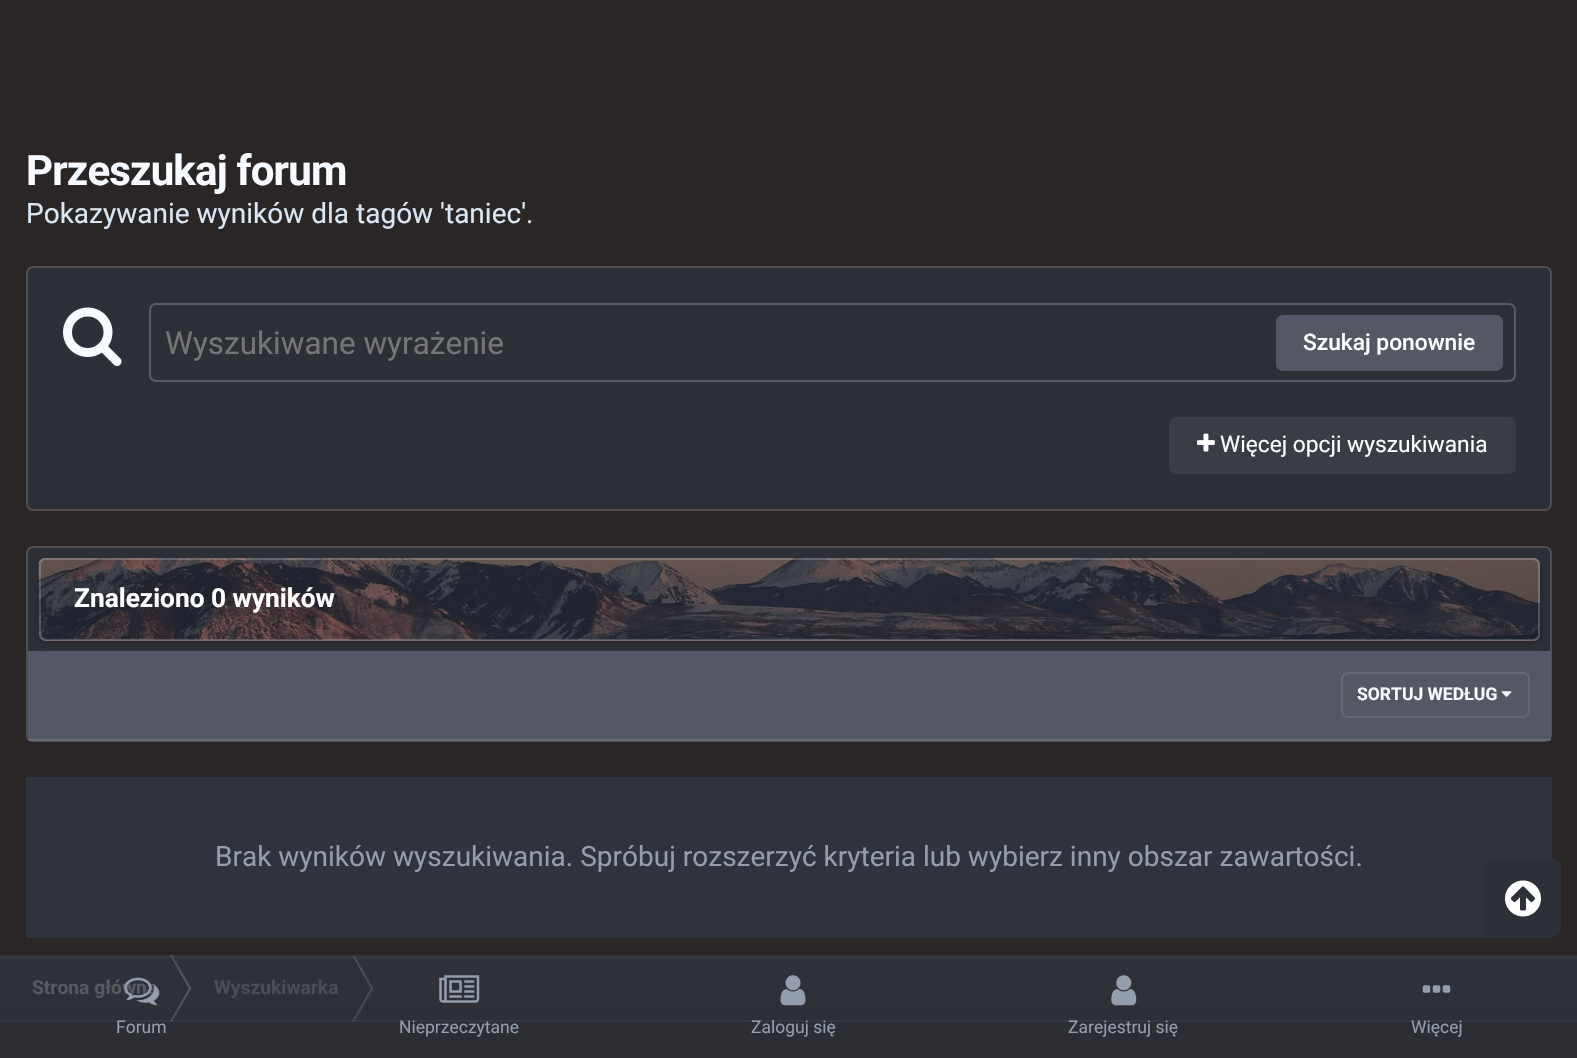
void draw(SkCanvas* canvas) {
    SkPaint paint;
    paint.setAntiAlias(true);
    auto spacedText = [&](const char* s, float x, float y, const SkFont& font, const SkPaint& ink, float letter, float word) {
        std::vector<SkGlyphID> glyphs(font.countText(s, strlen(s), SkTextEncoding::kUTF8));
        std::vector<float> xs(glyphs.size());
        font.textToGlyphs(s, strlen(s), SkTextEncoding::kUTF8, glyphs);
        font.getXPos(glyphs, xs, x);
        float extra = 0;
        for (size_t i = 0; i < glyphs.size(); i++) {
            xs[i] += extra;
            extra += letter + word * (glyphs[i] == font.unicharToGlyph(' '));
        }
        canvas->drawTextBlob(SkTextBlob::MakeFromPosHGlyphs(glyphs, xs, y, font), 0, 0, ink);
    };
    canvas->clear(0xFF2A2626);
    paint.setColor(0xFF2C2E34);
    canvas->drawRect(SkRect::MakeXYWH(0, 954, 1577, 104), paint);
    SkFont font1(fontMgr->matchFamilyStyle("Roboto", SkFontStyle::Bold()), 42);
    font1.setSubpixel(true);
    paint.setColor(0xFFF7FAFE);
    spacedText("Przeszukaj forum", 26, 185, font1, paint, -0.8f, 0);
    SkFont font2(fontMgr->matchFamilyStyle("Roboto", SkFontStyle::Normal()), 28);
    font2.setSubpixel(true);
    paint.setColor(0xFFDAE6F3);
    canvas->drawString("Pokazywanie wyników dla tagów 'taniec'.", 26, 223, font2, paint);
    paint.setColor(0xFF2D3037);
    canvas->drawRoundRect(SkRect::MakeXYWH(28, 268, 1523, 241), 5, 5, paint);
    paint.setStyle(SkPaint::kStroke_Style);
    paint.setStrokeWidth(2);
    paint.setColor(0x33DAE6F3);
    canvas->drawRoundRect(SkRect::MakeXYWH(27, 267, 1524, 243), 6, 6, paint);
    canvas->drawImageRect(SkImages::DeferredFromEncodedData(SkData::MakeFromFileName("img1.png")), SkRect::MakeXYWH(63, 307, 59, 59), SkSamplingOptions());
    paint.setColor(0xFF565C66);
    canvas->drawRoundRect(SkRect::MakeXYWH(150, 304, 1365, 77), 6, 6, paint);
    SkFont font3(fontMgr->matchFamilyStyle("Roboto", SkFontStyle::Normal()), 31.5f);
    font3.setSubpixel(true);
    paint.setStyle(SkPaint::kFill_Style);
    paint.setColor(0xFF757575);
    canvas->drawString("Wyszukiwane wyrażenie", 165, 354, font3, paint);
    paint.setColor(0xFF535864);
    canvas->drawRoundRect(SkRect::MakeXYWH(1276, 315, 227, 56), 7, 7, paint);
    SkFont font4(fontMgr->matchFamilyStyle("Roboto", SkFontStyle(500, SkFontStyle::kNormal_Width, SkFontStyle::kUpright_Slant)), 22.75f);
    font4.setSubpixel(true);
    paint.setColor(0xFFFFFFFF);
    canvas->drawString("Szukaj ponownie", 1303, 350, font4, paint);
    paint.setColor(0xFF393D46);
    canvas->drawRoundRect(SkRect::MakeXYWH(1169, 417, 347, 57), 7, 7, paint);
    canvas->drawImageRect(SkImages::DeferredFromEncodedData(SkData::MakeFromFileName("img2.png")), SkRect::MakeXYWH(1197, 433, 18, 19), SkSamplingOptions());
    SkFont font5(fontMgr->matchFamilyStyle("Roboto", SkFontStyle::Normal()), 22.75f);
    font5.setSubpixel(true);
    paint.setColor(0xFFFFFFFF);
    canvas->drawString("Więcej opcji wyszukiwania", 1220, 452, font5, paint);
    paint.setColor(0xFF2D3037);
    canvas->drawRoundRect(SkRect::MakeXYWH(28, 548, 1523, 192), 5, 5, paint);
    paint.setStyle(SkPaint::kStroke_Style);
    paint.setColor(0x33DAE6F3);
    canvas->drawRoundRect(SkRect::MakeXYWH(27, 547, 1524, 194), 6, 6, paint);
    paint.setStyle(SkPaint::kFill_Style);
    paint.setColor(0xFF535864);
    canvas->drawRect(SkRect::MakeXYWH(28, 651, 1523, 89), paint);
    paint.setColor(0x4D000000);
    paint.setMaskFilter(SkMaskFilter::MakeBlur(kNormal_SkBlurStyle, 3.5f));
    canvas->drawRoundRect(SkRect::MakeXYWH(39, 560, 1501, 82), 7, 7, paint);
    paint.setMaskFilter(nullptr);
    paint.setColor(0xFF8B6E6A);
    canvas->drawRoundRect(SkRect::MakeXYWH(39, 558, 1501, 83), 7, 7, paint);
    canvas->drawImageRect(SkImages::DeferredFromEncodedData(SkData::MakeFromFileName("img3.png")), SkRect::MakeXYWH(38, 557, 1502, 83), SkSamplingOptions());
    paint.setColor(0x801E1E1E);
    canvas->drawPath(SkPathBuilder().moveTo(46, 558).cubicTo(42, 558, 39, 561, 39, 565).lineTo(39, 634).cubicTo(39, 638, 42, 641, 46, 641).lineTo(1533, 641).cubicTo(1537, 641, 1540, 638, 1540, 634).lineTo(1540, 565).cubicTo(1540, 561, 1537, 558, 1533, 558).close().detach(), paint);
    paint.setStyle(SkPaint::kStroke_Style);
    paint.setColor(0x33F7FAFE);
    canvas->drawRoundRect(SkRect::MakeXYWH(40, 559, 1499, 81), 6, 6, paint);
    SkFont font6(fontMgr->matchFamilyStyle("Roboto", SkFontStyle::Bold()), 26.25f);
    font6.setSubpixel(true);
    paint.setStyle(SkPaint::kFill_Style);
    paint.setColor(0xFFFFFFFF);
    canvas->drawString("Znaleziono 0 wyników", 74, 607, font6, paint);
    paint.setColor(0x26DAE6F3);
    canvas->drawRect(SkRect::MakeXYWH(28, 739, 1523, 2), paint);
    canvas->drawImageRect(SkImages::DeferredFromEncodedData(SkData::MakeFromFileName("img4.png")), SkRect::MakeXYWH(1501, 691, 11, 6), SkSamplingOptions());
    paint.setStyle(SkPaint::kStroke_Style);
    paint.setColor(0xFF636873);
    canvas->drawRoundRect(SkRect::MakeXYWH(1342, 673, 187, 44), 6, 6, paint);
    SkFont font7(fontMgr->matchFamilyStyle("Roboto", SkFontStyle::Bold()), 17.5f);
    font7.setSubpixel(true);
    paint.setStyle(SkPaint::kFill_Style);
    paint.setColor(0xFFF7FAFE);
    canvas->drawString("SORTUJ WEDŁUG", 1357, 700, font7, paint);
    paint.setColor(0xFF30333B);
    canvas->drawRect(SkRect::MakeXYWH(26, 777, 1526, 161), paint);
    paint.setColor(0xFF939DAC);
    canvas->drawString("Brak wyników wyszukiwania. Spróbuj rozszerzyć kryteria lub wybierz inny obszar zawartości.", 215, 866, font2, paint);
    {
        const SkColor colors[] = {0xFF2F3239, 0xFF2D3037};
        const float stops[] = {0, 1};
        const SkPoint ends[] = {{789, 956}, {789, 1022}};
        paint.setShader(SkGradientShader::MakeLinear(ends, colors, stops, 2, SkTileMode::kClamp));
        paint.setAlpha(255);
    }
    canvas->drawRect(SkRect::MakeXYWH(0, 956, 1577, 66), paint);
    paint.setShader(nullptr);
    paint.setColor(0xFF57595F);
    canvas->drawPath(SkPathBuilder().moveTo(170, 955).lineTo(171.5f, 955).lineTo(191, 988.5f).lineTo(189, 988.5f).close().detach(), paint);
    paint.setColor(0x3350545D);
    canvas->drawPath(SkPathBuilder().moveTo(171.5f, 955).lineTo(173.5f, 955).lineTo(192.5f, 988.5f).lineTo(191, 988.5f).close().detach(), paint);
    canvas->save();
    canvas->clipRect(SkRect::MakeXYWH(0, 956, 1540, 66));
    paint.setColor(0xB357595F);
    canvas->drawPath(SkPathBuilder().moveTo(352, 955).lineTo(354, 955).lineTo(373, 988.5f).lineTo(371, 988.5f).close().detach(), paint);
    canvas->restore();
    paint.setColor(0x2450545D);
    canvas->drawPath(SkPathBuilder().moveTo(354, 955).lineTo(355.5f, 955).lineTo(374.5f, 988.5f).lineTo(373, 988.5f).close().detach(), paint);
    paint.setColor(0x3350545D);
    canvas->drawRect(SkRect::MakeXYWH(0, 956, 1577, 2), paint);
    paint.setColor(0xFF57595F);
    canvas->drawPath(SkPathBuilder().moveTo(170, 1021.5f).lineTo(171.5f, 1021.5f).lineTo(191, 988.5f).lineTo(189, 988.5f).close().detach(), paint);
    paint.setColor(0x3350545D);
    canvas->drawPath(SkPathBuilder().moveTo(171.5f, 1021.5f).lineTo(173.5f, 1021.5f).lineTo(192.5f, 988.5f).lineTo(191, 988.5f).close().detach(), paint);
    paint.setColor(0xB357595F);
    canvas->drawPath(SkPathBuilder().moveTo(352, 1021.5f).lineTo(354, 1021.5f).lineTo(373, 988.5f).lineTo(371, 988.5f).close().detach(), paint);
    paint.setColor(0x2450545D);
    canvas->drawPath(SkPathBuilder().moveTo(354, 1021.5f).lineTo(355.5f, 1021.5f).lineTo(374.5f, 988.5f).lineTo(373, 988.5f).close().detach(), paint);
    paint.setColor(0x3350545D);
    canvas->drawRect(SkRect::MakeXYWH(0, 1020, 1577, 2), paint);
    SkFont font8(fontMgr->matchFamilyStyle("Roboto", SkFontStyle::Bold()), 19.25f);
    font8.setSubpixel(true);
    paint.setColor(0xFF57595F);
    canvas->drawString("Strona główna", 32, 994, font8, paint);
    paint.setColor(0xFF4B4D53);
    canvas->drawString("Wyszukiwarka", 214, 994, font8, paint);
    paint.setColor(0xFF2D3037);
    canvas->drawRoundRect(SkRect::MakeXYWH(1484, 859, 77, 77), 7, 7, paint);
    canvas->drawImageRect(SkImages::DeferredFromEncodedData(SkData::MakeFromFileName("img5.png")), SkRect::MakeXYWH(1505, 880, 36, 37), SkSamplingOptions());
    paint.setColor(0xFF262222);
    canvas->drawPath(SkPathBuilder().moveTo(0, 952).lineTo(0, 954).lineTo(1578, 954).lineTo(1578, 1057).lineTo(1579, 1057).lineTo(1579, 952).close().detach(), paint);
    canvas->drawImageRect(SkImages::DeferredFromEncodedData(SkData::MakeFromFileName("img6.png")), SkRect::MakeXYWH(124, 977, 36, 29), SkSamplingOptions());
    SkFont font9(fontMgr->matchFamilyStyle("Roboto", SkFontStyle::Normal()), 17.5f);
    font9.setSubpixel(true);
    paint.setColor(0xFF939DAC);
    canvas->drawString("Forum", 116, 1033, font9, paint);
    canvas->drawImageRect(SkImages::DeferredFromEncodedData(SkData::MakeFromFileName("img7.png")), SkRect::MakeXYWH(439, 975, 41, 28), SkSamplingOptions());
    canvas->drawString("Nieprzeczytane", 399, 1033, font9, paint);
    canvas->drawImageRect(SkImages::DeferredFromEncodedData(SkData::MakeFromFileName("img8.png")), SkRect::MakeXYWH(780, 975, 26, 31), SkSamplingOptions());
    canvas->drawString("Zaloguj się", 751, 1033, font9, paint);
    canvas->drawImageRect(SkImages::DeferredFromEncodedData(SkData::MakeFromFileName("img9.png")), SkRect::MakeXYWH(1111, 975, 26, 31), SkSamplingOptions());
    canvas->drawString("Zarejestruj się", 1068, 1033, font9, paint);
    canvas->drawImageRect(SkImages::DeferredFromEncodedData(SkData::MakeFromFileName("img10.png")), SkRect::MakeXYWH(1422, 985, 29, 8), SkSamplingOptions());
    canvas->drawString("Więcej", 1411, 1033, font9, paint);
}
